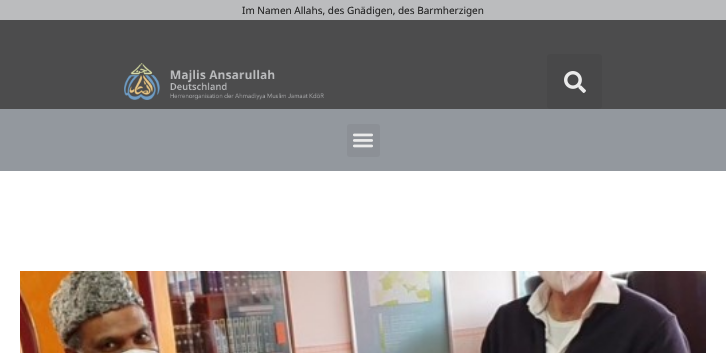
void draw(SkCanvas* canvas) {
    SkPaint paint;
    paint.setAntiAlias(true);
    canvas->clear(0xFFFFFFFF);
    paint.setColor(0xFFBBBCBE);
    canvas->drawRect(SkRect::MakeXYWH(0, 0, 726, 20), paint);
    SkFont font1(fontMgr->matchFamilyStyle("Noto Sans", SkFontStyle::Normal()), 10);
    font1.setSubpixel(true);
    paint.setColor(0xFF252525);
    canvas->drawString("Im Namen Allahs, des Gnädigen, des Barmherzigen", 242, 14, font1, paint);
    paint.setColor(0xFF4C4C4D);
    canvas->drawRect(SkRect::MakeXYWH(0, 20, 726, 89), paint);
    canvas->drawImageRect(SkImages::DeferredFromEncodedData(SkData::MakeFromFileName("img1.png")), SkRect::MakeXYWH(124, 63, 200, 37), SkSamplingOptions());
    paint.setColor(0xFF484849);
    canvas->drawRoundRect(SkRect::MakeXYWH(547, 54, 55, 55), 3, 3, paint);
    canvas->drawImageRect(SkImages::DeferredFromEncodedData(SkData::MakeFromFileName("img2.png")), SkRect::MakeXYWH(564, 71, 22, 22), SkSamplingOptions());
    paint.setColor(0xFF93989E);
    canvas->drawRect(SkRect::MakeXYWH(0, 109, 726, 62), paint);
    paint.setColor(0xFF8C9096);
    canvas->drawRoundRect(SkRect::MakeXYWH(347, 124, 33, 33), 3, 3, paint);
    canvas->drawImageRect(SkImages::DeferredFromEncodedData(SkData::MakeFromFileName("img3.png")), SkRect::MakeXYWH(353, 133, 20, 15), SkSamplingOptions());
    canvas->drawImageRect(SkImages::DeferredFromEncodedData(SkData::MakeFromFileName("img4.png")), SkRect::MakeXYWH(20, 271, 686, 82), SkSamplingOptions());
}
